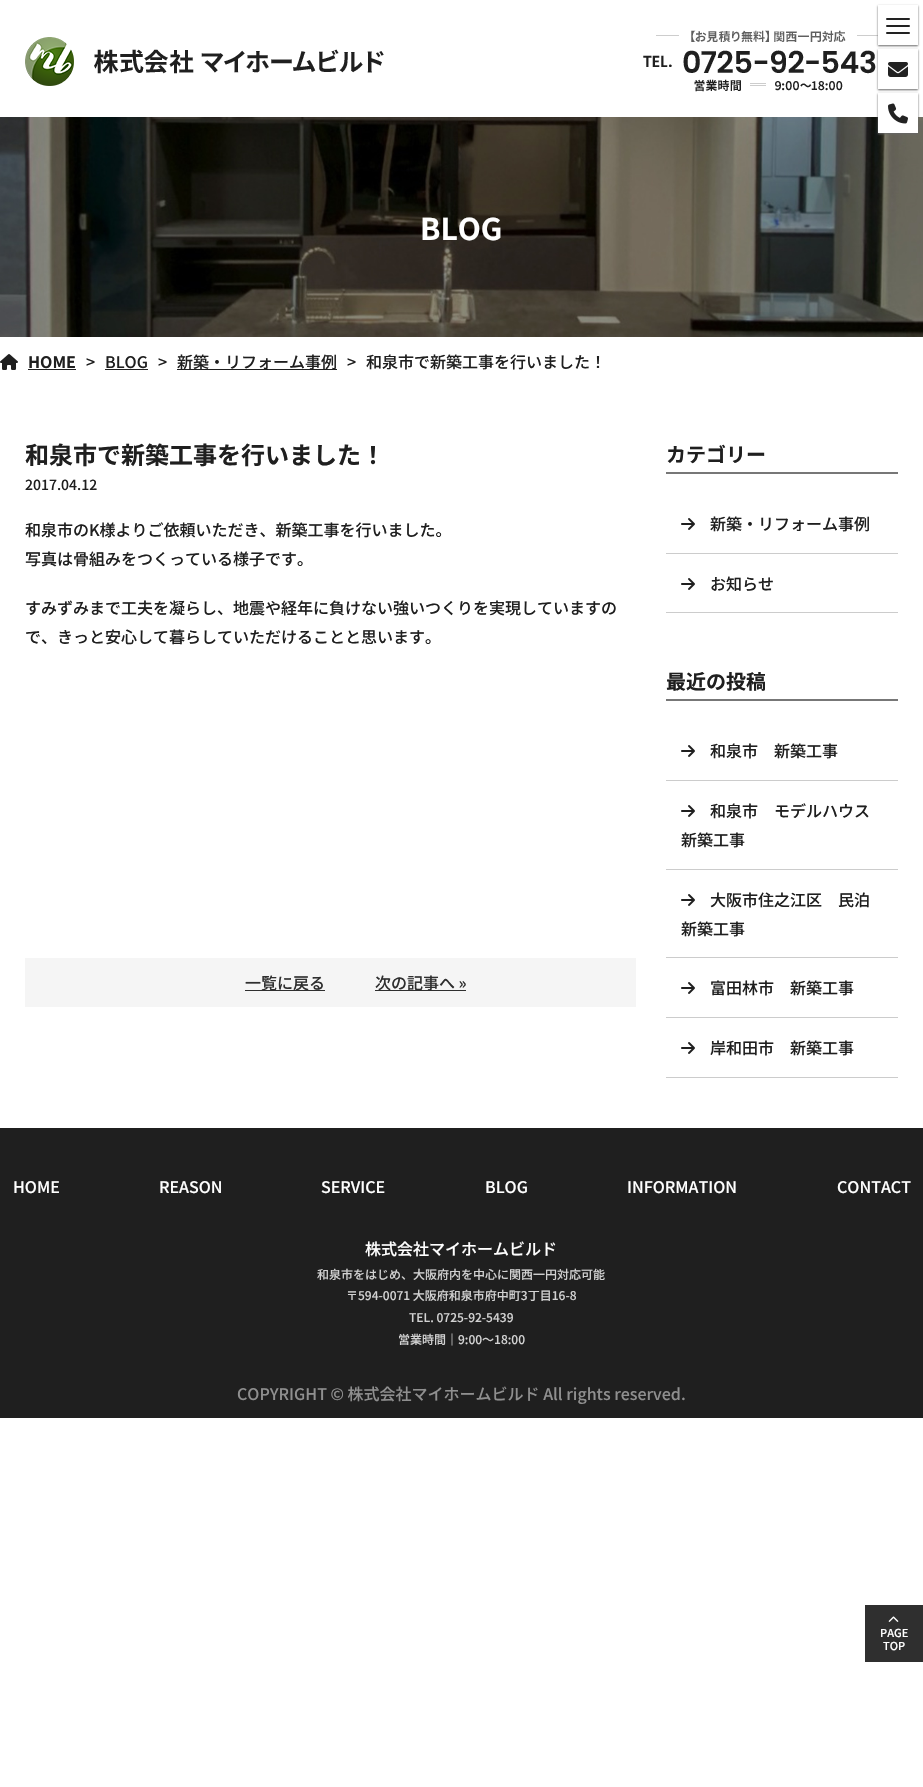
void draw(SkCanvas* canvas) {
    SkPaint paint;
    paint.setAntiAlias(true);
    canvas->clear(0xFFFFFFFF);
    canvas->drawImageRect(SkImages::DeferredFromEncodedData(SkData::MakeFromFileName("img4.png")), SkRect::MakeXYWH(643, 30, 235, 62), SkSamplingOptions());
    paint.setColor(0xFF666666);
    paint.setMaskFilter(SkMaskFilter::MakeBlur(kNormal_SkBlurStyle, 1));
    canvas->drawRect(SkRect::MakeXYWH(878, 50, 40, 40), paint);
    paint.setMaskFilter(nullptr);
    paint.setColor(0xFFFFFFFF);
    canvas->drawRect(SkRect::MakeXYWH(878, 49, 40, 40), paint);
    paint.setColor(0xFF666666);
    paint.setMaskFilter(SkMaskFilter::MakeBlur(kNormal_SkBlurStyle, 1));
    canvas->drawRect(SkRect::MakeXYWH(878, 6, 40, 40), paint);
    paint.setMaskFilter(nullptr);
    paint.setColor(0xFFFFFFFF);
    canvas->drawRect(SkRect::MakeXYWH(878, 5, 40, 40), paint);
    paint.setColor(0xFF222222);
    canvas->drawRoundRect(SkRect::MakeXYWH(886, 18, 24, 2), 1, 1, paint);
    canvas->drawRoundRect(SkRect::MakeXYWH(886, 25, 24, 2), 1, 1, paint);
    canvas->drawRoundRect(SkRect::MakeXYWH(886, 32, 24, 2), 1, 1, paint);
    canvas->drawImageRect(SkImages::DeferredFromEncodedData(SkData::MakeFromFileName("img1.png")), SkRect::MakeXYWH(888, 62, 20, 15), SkSamplingOptions());
    canvas->drawImageRect(SkImages::DeferredFromEncodedData(SkData::MakeFromFileName("img5.png")), SkRect::MakeXYWH(0, 117, 923, 220), SkSamplingOptions());
    paint.setColor(0xFF666666);
    paint.setMaskFilter(SkMaskFilter::MakeBlur(kNormal_SkBlurStyle, 1));
    canvas->drawRect(SkRect::MakeXYWH(878, 94, 40, 40), paint);
    paint.setMaskFilter(nullptr);
    paint.setColor(0xFFFFFFFF);
    canvas->drawRect(SkRect::MakeXYWH(878, 93, 40, 40), paint);
    canvas->drawImageRect(SkImages::DeferredFromEncodedData(SkData::MakeFromFileName("img2.png")), SkRect::MakeXYWH(888, 103, 20, 21), SkSamplingOptions());
    canvas->drawImageRect(SkImages::DeferredFromEncodedData(SkData::MakeFromFileName("img3.png")), SkRect::MakeXYWH(25, 37, 359, 49), SkSamplingOptions());
    SkFont font1(fontMgr->matchFamilyStyle("Noto Sans JP", SkFontStyle::Bold()), 30);
    font1.setSubpixel(true);
    canvas->drawString("BLOG", 420, 240, font1, paint);
    canvas->drawImageRect(SkImages::DeferredFromEncodedData(SkData::MakeFromFileName("img6.png")), SkRect::MakeXYWH(0, 354, 18, 16), SkSamplingOptions());
    SkFont font2(fontMgr->matchFamilyStyle("Noto Sans JP", SkFontStyle::Bold()), 16);
    font2.setSubpixel(true);
    paint.setColor(0xFF1F1F1F);
    canvas->drawString("HOME", 28, 368, font2, paint);
    canvas->drawRect(SkRect::MakeXYWH(28, 369, 48, 1), paint);
    SkFont font3(fontMgr->matchFamilyStyle("Noto Sans JP", SkFontStyle(500, SkFontStyle::kNormal_Width, SkFontStyle::kUpright_Slant)), 16);
    font3.setSubpixel(true);
    canvas->drawString(">", 86, 368, font3, paint);
    canvas->drawString("BLOG", 105, 368, font3, paint);
    canvas->drawRect(SkRect::MakeXYWH(105, 369, 43, 1), paint);
    canvas->drawString(">", 158, 368, font3, paint);
    canvas->drawRect(SkRect::MakeXYWH(177, 369, 160, 1), paint);
    canvas->drawString("新築・リフォーム事例", 177, 368, font3, paint);
    canvas->drawString(">", 347, 368, font3, paint);
    canvas->drawString("和泉市で新築工事を行いました！", 366, 368, font3, paint);
    SkFont font4(fontMgr->matchFamilyStyle("Noto Sans JP", SkFontStyle::Bold()), 24);
    font4.setSubpixel(true);
    canvas->drawString("和泉市で新築工事を行いました！", 25, 464, font4, paint);
    SkFont font5(fontMgr->matchFamilyStyle("Noto Sans JP", SkFontStyle(500, SkFontStyle::kNormal_Width, SkFontStyle::kUpright_Slant)), 14);
    font5.setSubpixel(true);
    canvas->drawString("2017.04.12", 25, 490, font5, paint);
    canvas->drawString("和泉市のK様よりご依頼いただき、新築工事を行いました。", 25, 536, font3, paint);
    canvas->drawString("写真は骨組みをつくっている様子です。", 25, 565, font3, paint);
    canvas->drawString("すみずみまで工夫を凝らし、地震や経年に負けない強いつくりを実現していますの", 25, 614, font3, paint);
    canvas->drawString("で、きっと安心して暮らしていただけることと思います。", 25, 643, font3, paint);
    paint.setColor(0xFFF5F5F5);
    canvas->drawRect(SkRect::MakeXYWH(25, 958, 611, 49), paint);
    paint.setColor(0xFF2F2F2F);
    canvas->drawRect(SkRect::MakeXYWH(245, 990, 80, 1), paint);
    canvas->drawString("一覧に戻る", 245, 989, font3, paint);
    canvas->drawRect(SkRect::MakeXYWH(375, 990, 91, 1), paint);
    canvas->drawString("次の記事へ »", 375, 989, font3, paint);
    paint.setColor(0xFF777777);
    canvas->drawRect(SkRect::MakeXYWH(666, 472, 232, 2), paint);
    SkFont font6(fontMgr->matchFamilyStyle("Noto Sans JP", SkFontStyle::Bold()), 20);
    font6.setSubpixel(true);
    paint.setColor(0xFF1F1F1F);
    canvas->drawString("カテゴリー", 666, 462, font6, paint);
    paint.setColor(0xFFCCCCCC);
    canvas->drawRect(SkRect::MakeXYWH(666, 553, 232, 1), paint);
    canvas->drawImageRect(SkImages::DeferredFromEncodedData(SkData::MakeFromFileName("img7.png")), SkRect::MakeXYWH(681, 518, 14, 12), SkSamplingOptions());
    paint.setColor(0xFF1F1F1F);
    canvas->drawString("新築・リフォーム事例", 710, 530, font3, paint);
    paint.setColor(0xFFCCCCCC);
    canvas->drawRect(SkRect::MakeXYWH(666, 612, 232, 1), paint);
    canvas->drawImageRect(SkImages::DeferredFromEncodedData(SkData::MakeFromFileName("img7.png")), SkRect::MakeXYWH(681, 578, 14, 12), SkSamplingOptions());
    paint.setColor(0xFF1F1F1F);
    canvas->drawString("お知らせ", 710, 590, font3, paint);
    paint.setColor(0xFF777777);
    canvas->drawRect(SkRect::MakeXYWH(666, 699, 232, 2), paint);
    paint.setColor(0xFF1F1F1F);
    canvas->drawString("最近の投稿", 666, 689, font6, paint);
    paint.setColor(0xFFCCCCCC);
    canvas->drawRect(SkRect::MakeXYWH(666, 780, 232, 1), paint);
    canvas->drawImageRect(SkImages::DeferredFromEncodedData(SkData::MakeFromFileName("img7.png")), SkRect::MakeXYWH(681, 745, 14, 12), SkSamplingOptions());
    paint.setColor(0xFF1F1F1F);
    canvas->drawString("和泉市　新築工事", 710, 757, font3, paint);
    paint.setColor(0xFFCCCCCC);
    canvas->drawRect(SkRect::MakeXYWH(666, 869, 232, 1), paint);
    canvas->drawImageRect(SkImages::DeferredFromEncodedData(SkData::MakeFromFileName("img7.png")), SkRect::MakeXYWH(681, 805, 14, 12), SkSamplingOptions());
    paint.setColor(0xFF1F1F1F);
    canvas->drawString("和泉市　モデルハウス", 710, 817, font3, paint);
    canvas->drawString("新築工事", 681, 846, font3, paint);
    paint.setColor(0xFFCCCCCC);
    canvas->drawRect(SkRect::MakeXYWH(666, 957, 232, 1), paint);
    canvas->drawImageRect(SkImages::DeferredFromEncodedData(SkData::MakeFromFileName("img7.png")), SkRect::MakeXYWH(681, 894, 14, 12), SkSamplingOptions());
    paint.setColor(0xFF1F1F1F);
    canvas->drawString("大阪市住之江区　民泊", 710, 906, font3, paint);
    canvas->drawString("新築工事", 681, 935, font3, paint);
    paint.setColor(0xFFCCCCCC);
    canvas->drawRect(SkRect::MakeXYWH(666, 1017, 232, 1), paint);
    canvas->drawImageRect(SkImages::DeferredFromEncodedData(SkData::MakeFromFileName("img7.png")), SkRect::MakeXYWH(681, 982, 14, 12), SkSamplingOptions());
    paint.setColor(0xFF1F1F1F);
    canvas->drawString("富田林市　新築工事", 710, 994, font3, paint);
    paint.setColor(0xFFCCCCCC);
    canvas->drawRect(SkRect::MakeXYWH(666, 1077, 232, 1), paint);
    canvas->drawImageRect(SkImages::DeferredFromEncodedData(SkData::MakeFromFileName("img7.png")), SkRect::MakeXYWH(681, 1042, 14, 12), SkSamplingOptions());
    paint.setColor(0xFF1F1F1F);
    canvas->drawString("岸和田市　新築工事", 710, 1054, font3, paint);
    canvas->drawRect(SkRect::MakeXYWH(0, 1128, 923, 290), paint);
    paint.setColor(0xFFFFFFFF);
    canvas->drawString("HOME", 13, 1193, font3, paint);
    canvas->drawString("REASON", 159, 1193, font3, paint);
    canvas->drawString("SERVICE", 321, 1193, font3, paint);
    canvas->drawString("BLOG", 485, 1193, font3, paint);
    canvas->drawString("INFORMATION", 627, 1193, font3, paint);
    canvas->drawString("CONTACT", 837, 1193, font3, paint);
    canvas->drawString("株式会社マイホームビルド", 365, 1255, font3, paint);
    SkFont font7(fontMgr->matchFamilyStyle("Noto Sans JP", SkFontStyle(500, SkFontStyle::kNormal_Width, SkFontStyle::kUpright_Slant)), 12);
    font7.setSubpixel(true);
    paint.setColor(0xFFD2D2D2);
    canvas->drawString("和泉市をはじめ、大阪府内を中心に関西一円対応可能", 317, 1279, font7, paint);
    canvas->drawString("〒594-0071 大阪府和泉市府中町3丁目16-8", 346, 1300, font7, paint);
    canvas->drawString("TEL. 0725-92-5439", 409, 1322, font7, paint);
    canvas->drawString("営業時間｜9:00～18:00", 398, 1344, font7, paint);
    paint.setColor(0xFF8F8F8F);
    canvas->drawString("COPYRIGHT © 株式会社マイホームビルド All rights reserved.", 237, 1400, font3, paint);
    paint.setColor(0xFF2F2F2F);
    canvas->drawRect(SkRect::MakeXYWH(865, 1605, 58, 57), paint);
    canvas->drawImageRect(SkImages::DeferredFromEncodedData(SkData::MakeFromFileName("img8.png")), SkRect::MakeXYWH(888, 1616, 11, 6), SkSamplingOptions());
    SkFont font8(fontMgr->matchFamilyStyle("Noto Sans JP", SkFontStyle(500, SkFontStyle::kNormal_Width, SkFontStyle::kUpright_Slant)), 11);
    font8.setSubpixel(true);
    paint.setColor(0xFFFFFFFF);
    canvas->drawString("PAGE", 880, 1637, font8, paint);
    canvas->drawString("TOP", 883, 1650, font8, paint);
}
